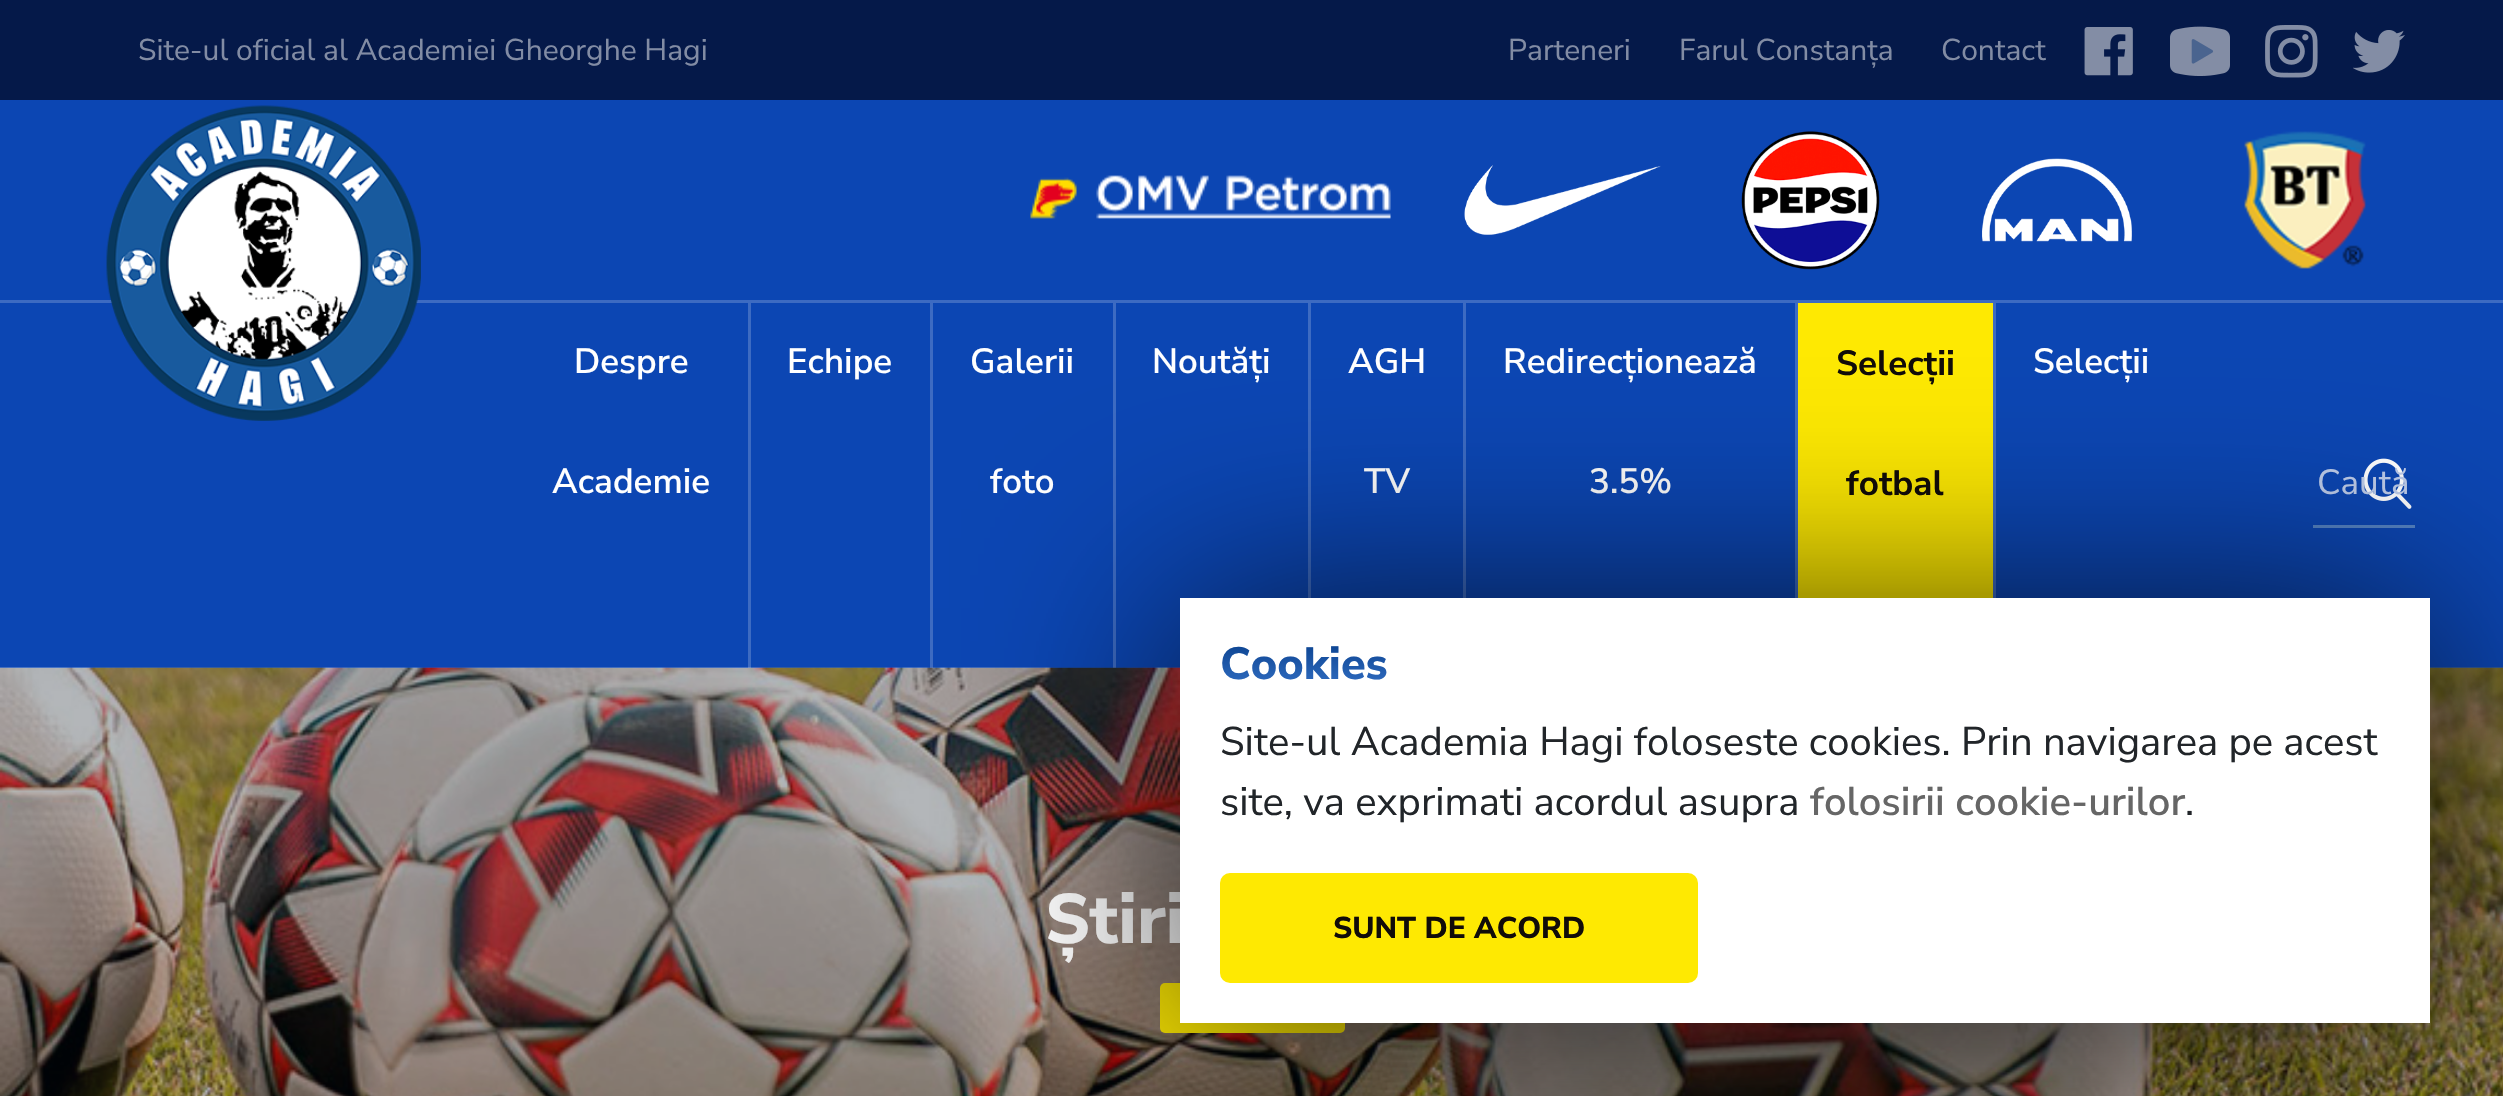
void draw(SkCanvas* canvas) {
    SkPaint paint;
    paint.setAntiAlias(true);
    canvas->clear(0xFF051949);
    SkFont font1(fontMgr->matchFamilyStyle("Nunito Sans", SkFontStyle::Normal()), 30);
    font1.setSubpixel(true);
    paint.setColor(0xFF828CA4);
    canvas->drawString("Site-ul oficial al Academiei Gheorghe Hagi", 138, 60, font1, paint);
    canvas->drawString("Parteneri", 1508, 60, font1, paint);
    canvas->drawString("Farul Constanța", 1679, 60, font1, paint);
    canvas->drawString("Contact", 1941, 60, font1, paint);
    canvas->drawImageRect(SkImages::DeferredFromEncodedData(SkData::MakeFromFileName("img1.png")), SkRect::MakeXYWH(2084, 27, 49, 49), SkSamplingOptions());
    canvas->drawImageRect(SkImages::DeferredFromEncodedData(SkData::MakeFromFileName("img2.png")), SkRect::MakeXYWH(2170, 26, 60, 50), SkSamplingOptions());
    canvas->drawImageRect(SkImages::DeferredFromEncodedData(SkData::MakeFromFileName("img3.png")), SkRect::MakeXYWH(2265, 25, 53, 53), SkSamplingOptions());
    canvas->drawImageRect(SkImages::DeferredFromEncodedData(SkData::MakeFromFileName("img4.png")), SkRect::MakeXYWH(2353, 30, 52, 43), SkSamplingOptions());
    paint.setColor(0xFF0C46B3);
    canvas->drawRect(SkRect::MakeXYWH(0, 100, 2503, 568), paint);
    paint.setColor(0xFF3D6BC2);
    canvas->drawRect(SkRect::MakeXYWH(0, 300, 2503, 3), paint);
    canvas->drawImageRect(SkImages::DeferredFromEncodedData(SkData::MakeFromFileName("img5.png")), SkRect::MakeXYWH(106, 105, 315, 316), SkSamplingOptions());
    canvas->drawImageRect(SkImages::DeferredFromEncodedData(SkData::MakeFromFileName("img6.png")), SkRect::MakeXYWH(1030, 175, 361, 44), SkSamplingOptions());
    canvas->drawImageRect(SkImages::DeferredFromEncodedData(SkData::MakeFromFileName("img7.png")), SkRect::MakeXYWH(1464, 165, 197, 70), SkSamplingOptions());
    canvas->drawImageRect(SkImages::DeferredFromEncodedData(SkData::MakeFromFileName("img8.png")), SkRect::MakeXYWH(1741, 131, 139, 139), SkSamplingOptions());
    canvas->drawImageRect(SkImages::DeferredFromEncodedData(SkData::MakeFromFileName("img9.png")), SkRect::MakeXYWH(1982, 158, 150, 84), SkSamplingOptions());
    canvas->drawImageRect(SkImages::DeferredFromEncodedData(SkData::MakeFromFileName("img10.png")), SkRect::MakeXYWH(2244, 131, 122, 138), SkSamplingOptions());
    SkFont font2(fontMgr->matchFamilyStyle("Nunito Sans", SkFontStyle(600, SkFontStyle::kNormal_Width, SkFontStyle::kUpright_Slant)), 35);
    font2.setSubpixel(true);
    paint.setColor(0xFFFFFFFF);
    canvas->drawString("Despre", 574, 373, font2, paint);
    canvas->drawString("Academie", 552, 493, font2, paint);
    paint.setColor(0xFF3D6BC2);
    canvas->drawRect(SkRect::MakeXYWH(748, 303, 3, 365), paint);
    paint.setColor(0xFFFFFFFF);
    canvas->drawString("Echipe", 787, 373, font2, paint);
    paint.setColor(0xFF3D6BC2);
    canvas->drawRect(SkRect::MakeXYWH(930, 303, 3, 365), paint);
    paint.setColor(0xFFFFFFFF);
    canvas->drawString("Galerii", 970, 373, font2, paint);
    canvas->drawString("foto", 990, 493, font2, paint);
    paint.setColor(0xFF3D6BC2);
    canvas->drawRect(SkRect::MakeXYWH(1113, 303, 3, 365), paint);
    paint.setColor(0xFFFFFFFF);
    canvas->drawString("Noutăți", 1152, 373, font2, paint);
    paint.setColor(0xFF3D6BC2);
    canvas->drawRect(SkRect::MakeXYWH(1308, 303, 3, 295), paint);
    paint.setColor(0xFFFFFFFF);
    canvas->drawString("AGH", 1348, 373, font2, paint);
    canvas->drawString("TV", 1364, 493, font2, paint);
    paint.setColor(0xFF3D6BC2);
    canvas->drawRect(SkRect::MakeXYWH(1463, 303, 3, 295), paint);
    paint.setColor(0xFFFFFFFF);
    canvas->drawString("Redirecționează", 1503, 373, font2, paint);
    canvas->drawString("3.5%", 1589, 493, font2, paint);
    paint.setColor(0xFF3D6BC2);
    canvas->drawRect(SkRect::MakeXYWH(1795, 303, 3, 295), paint);
    paint.setColor(0xFFFEE902);
    canvas->drawRect(SkRect::MakeXYWH(1798, 303, 195, 295), paint);
    SkFont font3(fontMgr->matchFamilyStyle("Nunito Sans", SkFontStyle::Bold()), 35);
    font3.setSubpixel(true);
    paint.setColor(0xFF110C09);
    canvas->drawString("Selecții", 1836, 375, font3, paint);
    canvas->drawString("fotbal", 1846, 495, font3, paint);
    paint.setColor(0xFF3D6BC2);
    canvas->drawRect(SkRect::MakeXYWH(1993, 303, 3, 295), paint);
    paint.setColor(0xFFFFFFFF);
    canvas->drawString("Selecții", 2033, 373, font2, paint);
    canvas->drawImageRect(SkImages::DeferredFromEncodedData(SkData::MakeFromFileName("img11.png")), SkRect::MakeXYWH(2363, 458, 49, 51), SkSamplingOptions());
    paint.setColor(0xFF5583C5);
    canvas->drawRect(SkRect::MakeXYWH(2313, 525, 102, 3), paint);
    SkFont font4(fontMgr->matchFamilyStyle("Nunito Sans", SkFontStyle::Normal()), 35);
    font4.setSubpixel(true);
    paint.setColor(0xFFBECDEB);
    canvas->drawString("Caută", 2317, 494, font4, paint);
    canvas->drawImageRect(SkImages::DeferredFromEncodedData(SkData::MakeFromFileName("img12.png")), SkRect::MakeXYWH(0, 667, 2503, 429), SkSamplingOptions());
    SkFont font5(fontMgr->matchFamilyStyle("Nunito Sans", SkFontStyle(800, SkFontStyle::kNormal_Width, SkFontStyle::kUpright_Slant)), 70);
    font5.setSubpixel(true);
    paint.setColor(0xFFFFFFFF);
    canvas->drawString("Știri", 1045, 943, font5, paint);
    paint.setColor(0xFFFEE902);
    canvas->drawRoundRect(SkRect::MakeXYWH(1160, 983, 185, 50), 5, 5, paint);
    paint.setColor(0xBF000000);
    paint.setMaskFilter(SkMaskFilter::MakeBlur(kNormal_SkBlurStyle, 105));
    canvas->drawRect(SkRect::MakeXYWH(1180, 608, 1250, 425), paint);
    paint.setMaskFilter(nullptr);
    paint.setColor(0xFFFFFFFF);
    canvas->drawRect(SkRect::MakeXYWH(1180, 598, 1250, 425), paint);
    SkFont font6(fontMgr->matchFamilyStyle("Nunito Sans", SkFontStyle(800, SkFontStyle::kNormal_Width, SkFontStyle::kUpright_Slant)), 45);
    font6.setSubpixel(true);
    {
        const SkColor colors[] = {0xFF09408D, 0xFF3673C8};
        const float stops[] = {0, 1};
        const SkPoint ends[] = {{1805, 639}, {1805, 693}};
        paint.setShader(SkGradientShader::MakeLinear(ends, colors, stops, 2, SkTileMode::kClamp));
        paint.setAlpha(255);
    }
    canvas->drawString("Cookies", 1220, 679, font6, paint);
    SkFont font7(fontMgr->matchFamilyStyle("Nunito Sans", SkFontStyle::Normal()), 40);
    font7.setSubpixel(true);
    paint.setShader(nullptr);
    paint.setColor(0xFF212529);
    canvas->drawString("Site-ul Academia Hagi foloseste cookies. Prin navigarea pe acest", 1220, 755, font7, paint);
    canvas->drawString("site, va exprimati acordul asupra", 1220, 815, font7, paint);
    SkFont font8(fontMgr->matchFamilyStyle("Nunito Sans", SkFontStyle(600, SkFontStyle::kNormal_Width, SkFontStyle::kUpright_Slant)), 40);
    font8.setSubpixel(true);
    paint.setColor(0xFF666666);
    canvas->drawString("folosirii cookie-urilor", 1810, 815, font8, paint);
    paint.setColor(0xFF212529);
    canvas->drawString(".", 2185, 815, font7, paint);
    paint.setColor(0xFFFEE902);
    canvas->drawRoundRect(SkRect::MakeXYWH(1220, 873, 478, 110), 10, 10, paint);
    SkFont font9(fontMgr->matchFamilyStyle("Nunito Sans", SkFontStyle(800, SkFontStyle::kNormal_Width, SkFontStyle::kUpright_Slant)), 30);
    font9.setSubpixel(true);
    paint.setColor(0xFF110C09);
    canvas->drawString("SUNT DE ACORD", 1333, 938, font9, paint);
}
